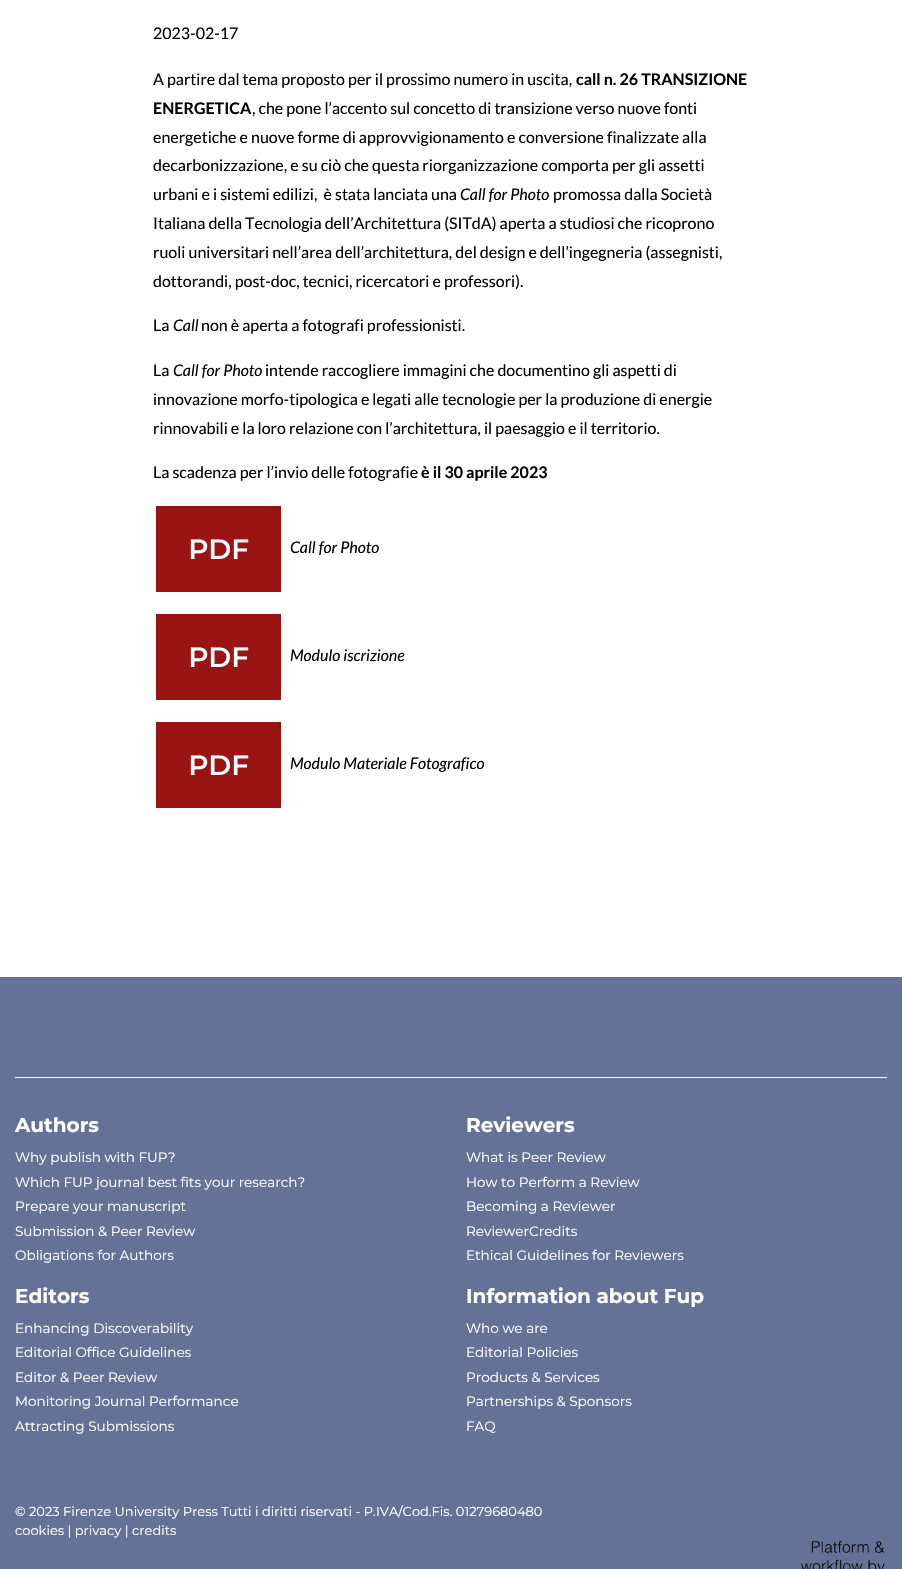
void draw(SkCanvas* canvas) {
    SkPaint paint;
    paint.setAntiAlias(true);
    canvas->clear(0xFFFFFFFF);
    SkFont font1(fontMgr->matchFamilyStyle("Lato", SkFontStyle::Normal()), 16);
    font1.setSubpixel(true);
    paint.setColor(0xFF000000);
    canvas->drawString("2023-02-17", 153, 39, font1, paint);
    canvas->drawString("A partire dal tema proposto per il prossimo numero in uscita,", 153, 85, font1, paint);
    SkFont font2(fontMgr->matchFamilyStyle("Lato", SkFontStyle::Bold()), 16);
    font2.setSubpixel(true);
    canvas->drawString("call n. 26 TRANSIZIONE", 576, 85, font2, paint);
    canvas->drawString("ENERGETICA", 153, 114, font2, paint);
    canvas->drawString(", che pone l’accento sul concetto di transizione verso nuove fonti", 252, 114, font1, paint);
    canvas->drawString("energetiche e nuove forme di approvvigionamento e conversione finalizzate alla", 153, 143, font1, paint);
    canvas->drawString("decarbonizzazione, e su ciò che questa riorganizzazione comporta per gli assetti", 153, 171, font1, paint);
    canvas->drawString("urbani e i sistemi edilizi,  è stata lanciata una", 153, 200, font1, paint);
    SkFont font3(fontMgr->matchFamilyStyle("Lato", SkFontStyle::Italic()), 16);
    font3.setSubpixel(true);
    canvas->drawString("Call for Photo", 460, 200, font3, paint);
    canvas->drawString("promossa dalla Società", 553, 200, font1, paint);
    canvas->drawString("Italiana della Tecnologia dell’Architettura (SITdA) aperta a studiosi che ricoprono", 153, 229, font1, paint);
    canvas->drawString("ruoli universitari nell’area dell’architettura, del design e dell’ingegneria (assegnisti,", 153, 258, font1, paint);
    canvas->drawString("dottorandi, post-doc, tecnici, ricercatori e professori).", 153, 287, font1, paint);
    canvas->drawString("La", 153, 331, font1, paint);
    canvas->drawString("Call", 173, 331, font3, paint);
    canvas->drawString("non è aperta a fotografi professionisti.", 201, 331, font1, paint);
    canvas->drawString("La", 153, 376, font1, paint);
    canvas->drawString("Call for Photo", 173, 376, font3, paint);
    canvas->drawString("intende raccogliere immagini che documentino gli aspetti di", 265, 376, font1, paint);
    canvas->drawString("innovazione morfo-tipologica e legati alle tecnologie per la produzione di energie", 153, 405, font1, paint);
    canvas->drawString("rinnovabili e la loro relazione con l’architettura, il paesaggio e il territorio.", 153, 434, font1, paint);
    canvas->drawString("La scadenza per l’invio delle fotografie", 153, 478, font1, paint);
    canvas->drawString("è il 30 aprile 2023", 421, 478, font2, paint);
    canvas->drawImageRect(SkImages::DeferredFromEncodedData(SkData::MakeFromFileName("img1.png")), SkRect::MakeXYWH(156, 506, 125, 86), SkSamplingOptions());
    canvas->drawString("Call for Photo", 290, 553, font3, paint);
    canvas->drawImageRect(SkImages::DeferredFromEncodedData(SkData::MakeFromFileName("img1.png")), SkRect::MakeXYWH(156, 614, 125, 86), SkSamplingOptions());
    canvas->drawString("Modulo iscrizione", 290, 661, font3, paint);
    canvas->drawImageRect(SkImages::DeferredFromEncodedData(SkData::MakeFromFileName("img1.png")), SkRect::MakeXYWH(156, 722, 125, 86), SkSamplingOptions());
    canvas->drawString("Modulo Materiale Fotografico", 290, 769, font3, paint);
    paint.setColor(0xFF647297);
    canvas->drawRect(SkRect::MakeXYWH(0, 977, 902, 592), paint);
    paint.setColor(0xFFFFFFFF);
    canvas->drawRect(SkRect::MakeXYWH(15, 1077, 872, 1), paint);
    SkFont font4(fontMgr->matchFamilyStyle("Montserrat", SkFontStyle::Bold()), 20);
    font4.setSubpixel(true);
    canvas->drawString("Authors", 15, 1132, font4, paint);
    SkFont font5(fontMgr->matchFamilyStyle("Montserrat", SkFontStyle::Normal()), 13.6f);
    font5.setSubpixel(true);
    canvas->drawString("Why publish with FUP?", 15, 1162, font5, paint);
    canvas->drawString("Which FUP journal best fits your research?", 15, 1187, font5, paint);
    canvas->drawString("Prepare your manuscript", 15, 1211, font5, paint);
    canvas->drawString("Submission & Peer Review", 15, 1236, font5, paint);
    canvas->drawString("Obligations for Authors", 15, 1260, font5, paint);
    canvas->drawString("Reviewers", 466, 1132, font4, paint);
    canvas->drawString("What is Peer Review", 466, 1162, font5, paint);
    canvas->drawString("How to Perform a Review", 466, 1187, font5, paint);
    canvas->drawString("Becoming a Reviewer", 466, 1211, font5, paint);
    canvas->drawString("ReviewerCredits", 466, 1236, font5, paint);
    canvas->drawString("Ethical Guidelines for Reviewers", 466, 1260, font5, paint);
    canvas->drawString("Editors", 15, 1303, font4, paint);
    canvas->drawString("Enhancing Discoverability", 15, 1333, font5, paint);
    canvas->drawString("Editorial Office Guidelines", 15, 1357, font5, paint);
    canvas->drawString("Editor & Peer Review", 15, 1382, font5, paint);
    canvas->drawString("Monitoring Journal Performance", 15, 1406, font5, paint);
    canvas->drawString("Attracting Submissions", 15, 1431, font5, paint);
    canvas->drawString("Information about Fup", 466, 1303, font4, paint);
    canvas->drawString("Who we are", 466, 1333, font5, paint);
    canvas->drawString("Editorial Policies", 466, 1357, font5, paint);
    canvas->drawString("Products & Services", 466, 1382, font5, paint);
    canvas->drawString("Partnerships & Sponsors", 466, 1406, font5, paint);
    canvas->drawString("FAQ", 466, 1431, font5, paint);
    SkFont font6(fontMgr->matchFamilyStyle("Montserrat", SkFontStyle::Normal()), 13);
    font6.setSubpixel(true);
    canvas->drawString("© 2023 Firenze University Press Tutti i diritti riservati - P.IVA/Cod.Fis. 01279680480", 15, 1516, font6, paint);
    canvas->drawString("cookies | privacy | credits", 15, 1535, font6, paint);
    canvas->drawImageRect(SkImages::DeferredFromEncodedData(SkData::MakeFromFileName("img2.png")), SkRect::MakeXYWH(801, 1541, 84, 28), SkSamplingOptions());
}
